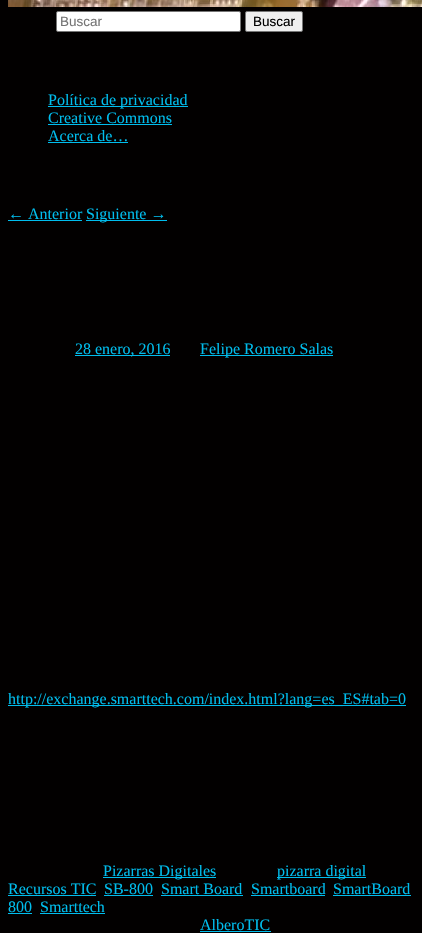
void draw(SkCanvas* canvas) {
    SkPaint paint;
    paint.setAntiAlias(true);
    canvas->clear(0xFF020000);
    canvas->drawImageRect(SkImages::DeferredFromEncodedData(SkData::MakeFromFileName("img1.png")), SkRect::MakeXYWH(8, 0, 414, 7), SkSamplingOptions());
    paint.setColor(0xFFFFFFFF);
    canvas->drawRoundRect(SkRect::MakeXYWH(56.5f, 11.5f, 184, 20), 1.5f, 1.5f, paint);
    paint.setStyle(SkPaint::kStroke_Style);
    paint.setStrokeWidth(1);
    paint.setColor(0xFF767676);
    canvas->drawRoundRect(SkRect::MakeXYWH(56.5f, 11.5f, 184, 20), 1.5f, 1.5f, paint);
    SkFont font1(fontMgr->matchFamilyStyle("Liberation Sans", SkFontStyle::Normal()), 13.5f);
    font1.setSubpixel(true);
    paint.setStyle(SkPaint::kFill_Style);
    paint.setColor(0xFF757575);
    canvas->drawString("Buscar", 60, 26, font1, paint);
    paint.setColor(0xFFEFEFEF);
    canvas->drawRoundRect(SkRect::MakeXYWH(245.5f, 11.5f, 57, 20), 1.5f, 1.5f, paint);
    paint.setStyle(SkPaint::kStroke_Style);
    paint.setColor(0xFF767676);
    canvas->drawRoundRect(SkRect::MakeXYWH(245.5f, 11.5f, 57, 20), 1.5f, 1.5f, paint);
    paint.setStyle(SkPaint::kFill_Style);
    paint.setColor(0xFF000000);
    canvas->drawString("Buscar", 253, 26, font1, paint);
    paint.setColor(0xFF00BDED);
    canvas->drawRect(SkRect::MakeXYWH(48, 106, 140, 1), paint);
    SkFont font2(fontMgr->matchFamilyStyle("Liberation Serif", SkFontStyle::Normal()), 16);
    font2.setSubpixel(true);
    canvas->drawString("Política de privacidad", 48, 105, font2, paint);
    canvas->drawString("Creative Commons", 48, 123, font2, paint);
    canvas->drawRect(SkRect::MakeXYWH(48, 124, 124, 1), paint);
    canvas->drawString("Acerca de…", 48, 141, font2, paint);
    canvas->drawRect(SkRect::MakeXYWH(48, 142, 80, 1), paint);
    canvas->drawString("← Anterior", 8, 219, font2, paint);
    canvas->drawRect(SkRect::MakeXYWH(8, 220, 74, 1), paint);
    canvas->drawRect(SkRect::MakeXYWH(86, 220, 81, 1), paint);
    canvas->drawString("Siguiente →", 86, 219, font2, paint);
    canvas->drawRect(SkRect::MakeXYWH(75, 355, 95, 1), paint);
    canvas->drawString("28 enero, 2016", 75, 354, font2, paint);
    canvas->drawRect(SkRect::MakeXYWH(200, 355, 133, 1), paint);
    canvas->drawString("Felipe Romero Salas", 200, 354, font2, paint);
    canvas->drawRect(SkRect::MakeXYWH(8, 705, 398, 1), paint);
    canvas->drawString("http://exchange.smarttech.com/index.html?lang=es_ES#tab=0", 8, 704, font2, paint);
    canvas->drawRect(SkRect::MakeXYWH(103, 877, 113, 1), paint);
    canvas->drawString("Pizarras Digitales", 103, 876, font2, paint);
    canvas->drawRect(SkRect::MakeXYWH(277, 877, 89, 1), paint);
    canvas->drawString("pizarra digital", 277, 876, font2, paint);
    canvas->drawString("Recursos TIC", 8, 894, font2, paint);
    canvas->drawRect(SkRect::MakeXYWH(8, 895, 88, 1), paint);
    canvas->drawString("SB-800", 104, 894, font2, paint);
    canvas->drawRect(SkRect::MakeXYWH(104, 895, 49, 1), paint);
    canvas->drawString("Smart Board", 161, 894, font2, paint);
    canvas->drawRect(SkRect::MakeXYWH(161, 895, 82, 1), paint);
    canvas->drawString("Smartboard", 251, 894, font2, paint);
    canvas->drawRect(SkRect::MakeXYWH(251, 895, 74, 1), paint);
    canvas->drawString("SmartBoard", 333, 894, font2, paint);
    canvas->drawRect(SkRect::MakeXYWH(333, 895, 78, 1), paint);
    canvas->drawString("800", 8, 912, font2, paint);
    canvas->drawRect(SkRect::MakeXYWH(8, 913, 24, 1), paint);
    canvas->drawString("Smarttech", 40, 912, font2, paint);
    canvas->drawRect(SkRect::MakeXYWH(40, 913, 65, 1), paint);
    canvas->drawString("AlberoTIC", 200, 930, font2, paint);
    canvas->drawRect(SkRect::MakeXYWH(200, 931, 71, 1), paint);
}
